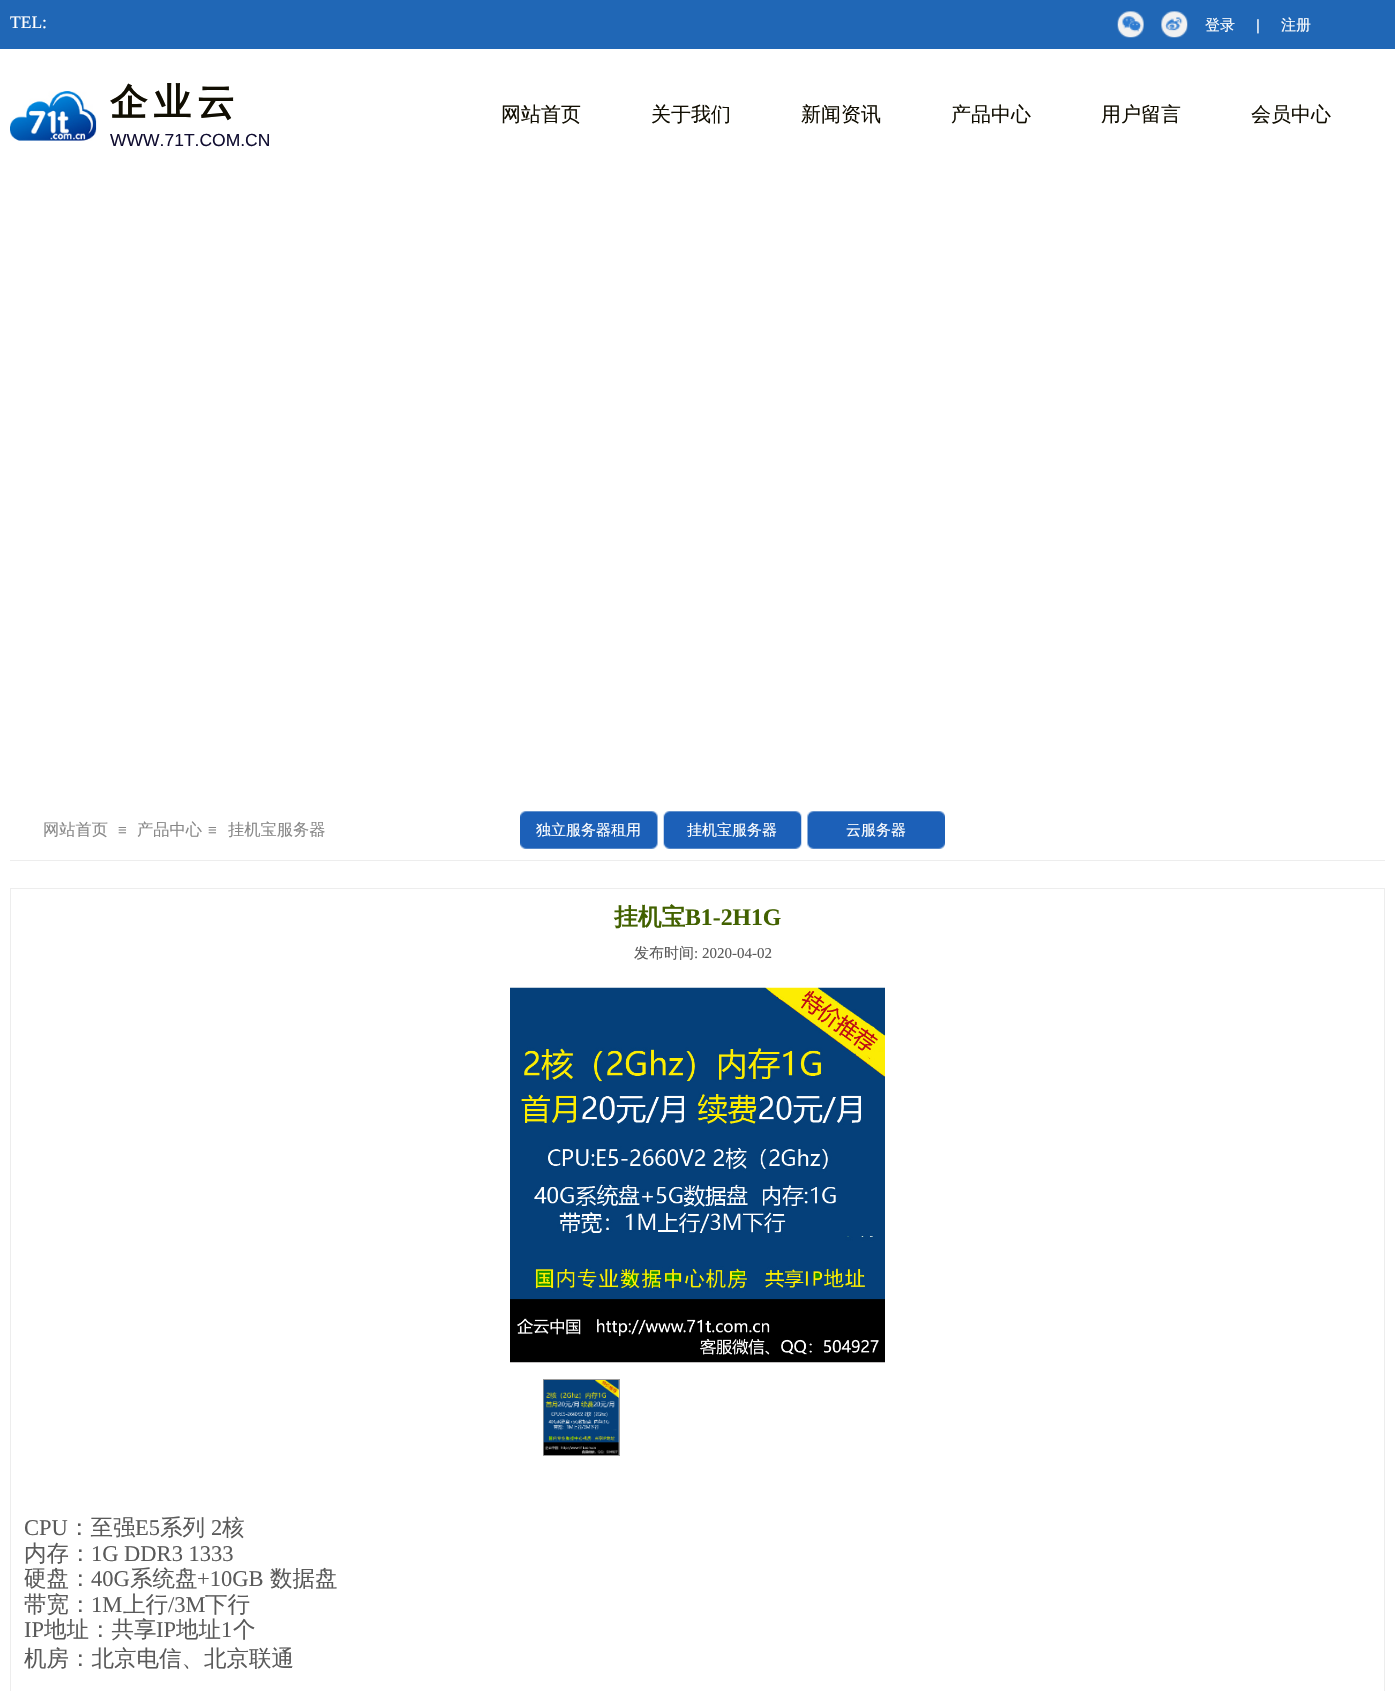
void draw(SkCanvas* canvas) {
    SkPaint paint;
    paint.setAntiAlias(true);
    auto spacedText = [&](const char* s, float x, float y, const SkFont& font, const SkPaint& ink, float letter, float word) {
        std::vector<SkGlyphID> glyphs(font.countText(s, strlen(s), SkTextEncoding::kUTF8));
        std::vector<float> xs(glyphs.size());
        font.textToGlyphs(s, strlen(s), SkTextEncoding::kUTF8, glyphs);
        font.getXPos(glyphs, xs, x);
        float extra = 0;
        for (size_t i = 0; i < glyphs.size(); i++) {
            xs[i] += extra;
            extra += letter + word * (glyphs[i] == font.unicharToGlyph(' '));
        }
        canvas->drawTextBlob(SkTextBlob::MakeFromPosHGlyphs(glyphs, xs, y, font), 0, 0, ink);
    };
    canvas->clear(0xFFFFFFFF);
    paint.setColor(0xFF2067B6);
    canvas->drawRect(SkRect::MakeXYWH(0, 0, 1395, 49), paint);
    SkFont font1(fontMgr->matchFamilyStyle("Liberation Serif", SkFontStyle::Normal()), 17.5f);
    font1.setSubpixel(true);
    paint.setColor(0xFFFFFFFF);
    canvas->drawString("TEL:", 10, 28, font1, paint);
    canvas->drawImageRect(SkImages::DeferredFromEncodedData(SkData::MakeFromFileName("img1.png")), SkRect::MakeXYWH(1117, 11, 27, 27), SkSamplingOptions());
    canvas->drawImageRect(SkImages::DeferredFromEncodedData(SkData::MakeFromFileName("img2.png")), SkRect::MakeXYWH(1161, 11, 27, 27), SkSamplingOptions());
    SkFont font2(fontMgr->matchFamilyStyle("WenQuanYi Zen Hei", SkFontStyle(500, SkFontStyle::kNormal_Width, SkFontStyle::kUpright_Slant)), 15);
    font2.setSubpixel(true);
    canvas->drawString("登录", 1205, 30, font2, paint);
    SkFont font3(fontMgr->matchFamilyStyle("Liberation Sans", SkFontStyle::Normal()), 15);
    font3.setSubpixel(true);
    canvas->drawString("|", 1256, 30, font3, paint);
    canvas->drawString("注册", 1281, 30, font2, paint);
    canvas->drawImageRect(SkImages::DeferredFromEncodedData(SkData::MakeFromFileName("img3.png")), SkRect::MakeXYWH(10, 91, 87, 50), SkSamplingOptions());
    SkFont font4(fontMgr->matchFamilyStyle("WenQuanYi Zen Hei", SkFontStyle::Bold()), 37.5f);
    font4.setSubpixel(true);
    paint.setColor(0xFF110E02);
    spacedText("企业云", 110, 115, font4, paint, 6, 0);
    SkFont font5(fontMgr->matchFamilyStyle("WenQuanYi Zen Hei", SkFontStyle(500, SkFontStyle::kNormal_Width, SkFontStyle::kUpright_Slant)), 20);
    font5.setSubpixel(true);
    canvas->drawString("网站首页", 501, 121, font5, paint);
    canvas->drawString("关于我们", 651, 121, font5, paint);
    canvas->drawString("新闻资讯", 801, 121, font5, paint);
    canvas->drawString("产品中心", 951, 121, font5, paint);
    canvas->drawString("用户留言", 1101, 121, font5, paint);
    canvas->drawString("会员中心", 1251, 121, font5, paint);
    SkFont font6(fontMgr->matchFamilyStyle("Liberation Sans", SkFontStyle::Normal()), 17.5f);
    font6.setSubpixel(true);
    paint.setColor(0xFF110E31);
    canvas->drawString("WWW.71T.COM.CN", 110, 146, font6, paint);
    SkFont font7(fontMgr->matchFamilyStyle("WenQuanYi Zen Hei", SkFontStyle(500, SkFontStyle::kNormal_Width, SkFontStyle::kUpright_Slant)), 16.25f);
    font7.setSubpixel(true);
    paint.setColor(0xFF888888);
    canvas->drawString("网站首页", 43, 835, font7, paint);
    canvas->drawString("≡", 118, 835, font3, paint);
    canvas->drawString("产品中心", 137, 835, font7, paint);
    canvas->drawString("≡", 208, 835, font3, paint);
    canvas->drawString("挂机宝服务器", 228, 835, font7, paint);
    canvas->drawImageRect(SkImages::DeferredFromEncodedData(SkData::MakeFromFileName("img4.png")), SkRect::MakeXYWH(520, 811, 138, 38), SkSamplingOptions());
    paint.setColor(0xFFFFFFFF);
    canvas->drawString("独立服务器租用", 536, 835, font2, paint);
    canvas->drawImageRect(SkImages::DeferredFromEncodedData(SkData::MakeFromFileName("img5.png")), SkRect::MakeXYWH(663, 811, 139, 38), SkSamplingOptions());
    canvas->drawString("挂机宝服务器", 687, 835, font2, paint);
    canvas->drawImageRect(SkImages::DeferredFromEncodedData(SkData::MakeFromFileName("img6.png")), SkRect::MakeXYWH(807, 811, 138, 38), SkSamplingOptions());
    canvas->drawString("云服务器", 846, 835, font2, paint);
    paint.setColor(0xFFEDEDED);
    canvas->drawRect(SkRect::MakeXYWH(10, 860, 1375, 1), paint);
    paint.setStyle(SkPaint::kStroke_Style);
    paint.setStrokeWidth(1);
    canvas->drawRect(SkRect::MakeXYWH(10.5f, 888.5f, 1374, 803), paint);
    SkFont font8(fontMgr->matchFamilyStyle("WenQuanYi Zen Hei", SkFontStyle::Bold()), 23.75f);
    font8.setSubpixel(true);
    paint.setStyle(SkPaint::kFill_Style);
    paint.setColor(0xFF426100);
    canvas->drawString("挂机宝", 614, 925, font8, paint);
    SkFont font9(fontMgr->matchFamilyStyle("Liberation Serif", SkFontStyle::Bold()), 23.75f);
    font9.setSubpixel(true);
    canvas->drawString("B1-2H1G", 685, 925, font9, paint);
    paint.setColor(0xFF5A5A5A);
    canvas->drawString("发布时间", 634, 958, font2, paint);
    SkFont font10(fontMgr->matchFamilyStyle("Liberation Serif", SkFontStyle::Normal()), 15);
    font10.setSubpixel(true);
    canvas->drawString(": 2020-04-02", 694, 958, font10, paint);
    canvas->drawImageRect(SkImages::DeferredFromEncodedData(SkData::MakeFromFileName("img7.png")), SkRect::MakeXYWH(510, 987, 375, 376), SkSamplingOptions());
    paint.setStyle(SkPaint::kStroke_Style);
    paint.setColor(0xFF9C9C9C);
    canvas->drawRect(SkRect::MakeXYWH(543.5f, 1379.5f, 76, 76), paint);
    canvas->drawImageRect(SkImages::DeferredFromEncodedData(SkData::MakeFromFileName("img8.png")), SkRect::MakeXYWH(543, 1380, 76, 75), SkSamplingOptions());
    SkFont font11(fontMgr->matchFamilyStyle("Liberation Serif", SkFontStyle::Normal()), 22.5f);
    font11.setSubpixel(true);
    paint.setStyle(SkPaint::kFill_Style);
    paint.setColor(0xFF5A5A5A);
    canvas->drawString("CPU", 24, 1535, font11, paint);
    SkFont font12(fontMgr->matchFamilyStyle("WenQuanYi Zen Hei", SkFontStyle(500, SkFontStyle::kNormal_Width, SkFontStyle::kUpright_Slant)), 22.5f);
    font12.setSubpixel(true);
    canvas->drawString("：至强", 68, 1535, font12, paint);
    canvas->drawString("E5", 135, 1535, font11, paint);
    canvas->drawString("系列", 160, 1535, font12, paint);
    canvas->drawString("2", 211, 1535, font11, paint);
    canvas->drawString("核", 222, 1535, font12, paint);
    canvas->drawString("内存：", 24, 1561, font12, paint);
    canvas->drawString("1G DDR3 1333", 91, 1561, font11, paint);
    canvas->drawString("硬盘：", 24, 1586, font12, paint);
    canvas->drawString("40G", 91, 1586, font11, paint);
    canvas->drawString("系统盘", 130, 1586, font12, paint);
    canvas->drawString("+10GB", 197, 1586, font11, paint);
    canvas->drawString("数据盘", 270, 1586, font12, paint);
    canvas->drawString("带宽：", 24, 1612, font12, paint);
    canvas->drawString("1M", 91, 1612, font11, paint);
    canvas->drawString("上行", 123, 1612, font12, paint);
    canvas->drawString("/3M", 168, 1612, font11, paint);
    canvas->drawString("下行", 205, 1612, font12, paint);
    canvas->drawString("IP", 24, 1637, font11, paint);
    canvas->drawString("地址：共享", 44, 1637, font12, paint);
    canvas->drawString("IP", 156, 1637, font11, paint);
    canvas->drawString("地址", 176, 1637, font12, paint);
    canvas->drawString("1", 221, 1637, font11, paint);
    canvas->drawString("个", 233, 1637, font12, paint);
    canvas->drawString("机房：北京电信、北京联通", 24, 1666, font12, paint);
}
